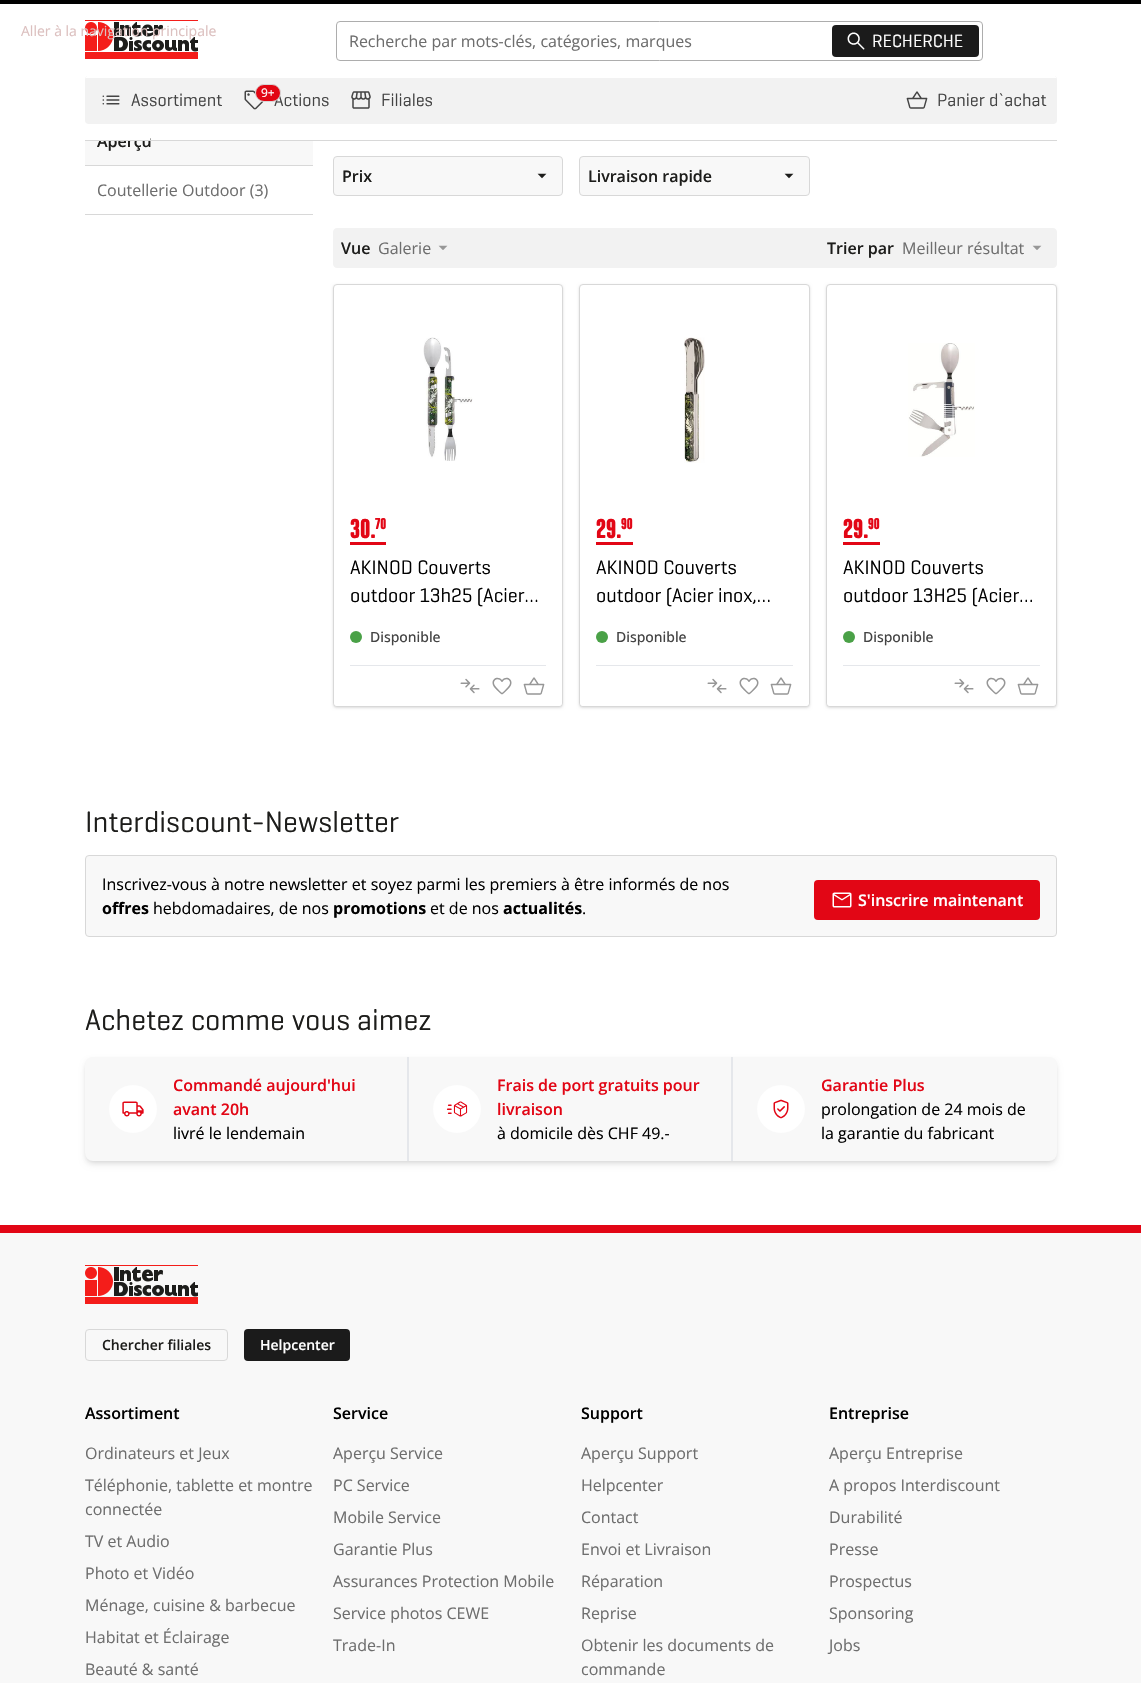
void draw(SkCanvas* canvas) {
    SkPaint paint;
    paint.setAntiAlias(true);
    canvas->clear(0xFFFFFFFF);
    paint.setColor(0xFF000000);
    canvas->drawRect(SkRect::MakeXYWH(0, 0, 1141, 4), paint);
    canvas->drawImageRect(SkImages::DeferredFromEncodedData(SkData::MakeFromFileName("img1.png")), SkRect::MakeXYWH(85, 20, 113, 39), SkSamplingOptions());
    SkFont font1(fontMgr->matchFamilyStyle("Open Sans", SkFontStyle::Normal()), 14);
    font1.setSubpixel(true);
    paint.setColor(0xFFDCC0BF);
    canvas->drawString("Aller à la navigation principale", 21, 36, font1, paint);
    paint.setColor(0xFFF2F2F2);
    canvas->drawRoundRect(SkRect::MakeXYWH(85, 76, 972, 48), 4, 4, paint);
    paint.setColor(0xFFFFFFFF);
    canvas->drawRect(SkRect::MakeXYWH(86, 77, 970, 1), paint);
    canvas->drawRect(SkRect::MakeXYWH(87, 76, 968, 1), paint);
    paint.setStyle(SkPaint::kStroke_Style);
    paint.setStrokeWidth(1);
    paint.setColor(0xFFADADAD);
    canvas->drawRoundRect(SkRect::MakeXYWH(336.5f, 21.5f, 646, 39), 3.5f, 3.5f, paint);
    SkFont font2(fontMgr->matchFamilyStyle("Open Sans", SkFontStyle::Normal()), 16);
    font2.setSubpixel(true);
    paint.setStyle(SkPaint::kFill_Style);
    paint.setColor(0xFF6E6E6E);
    canvas->drawString("Recherche par mots-clés, catégories, marques", 349, 47, font2, paint);
    paint.setColor(0xFF1B1B1B);
    canvas->drawRoundRect(SkRect::MakeXYWH(832, 25, 147, 32), 4, 4, paint);
    canvas->drawImageRect(SkImages::DeferredFromEncodedData(SkData::MakeFromFileName("img2.png")), SkRect::MakeXYWH(847, 32, 18, 18), SkSamplingOptions());
    SkFont font3(fontMgr->matchFamilyStyle("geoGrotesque", SkFontStyle::Normal()), 18);
    font3.setSubpixel(true);
    paint.setColor(0xFFFFFFFF);
    canvas->drawString("RECHERCHE", 872, 47, font3, paint);
    paint.setColor(0xFFF8F8F8);
    canvas->drawRect(SkRect::MakeXYWH(85, 141, 228, 24), paint);
    SkFont font4(fontMgr->matchFamilyStyle("Open Sans", SkFontStyle(600, SkFontStyle::kNormal_Width, SkFontStyle::kUpright_Slant)), 16);
    font4.setSubpixel(true);
    paint.setColor(0xFF1D1D1B);
    canvas->drawString("Aperçu", 97, 147, font4, paint);
    paint.setColor(0xFFFFFFFF);
    canvas->drawRect(SkRect::MakeXYWH(98, 135, 52, 6), paint);
    canvas->drawImageRect(SkImages::DeferredFromEncodedData(SkData::MakeFromFileName("img3.png")), SkRect::MakeXYWH(102, 95, 18, 10), SkSamplingOptions());
    paint.setColor(0xFF444444);
    canvas->drawString("Assortiment", 131, 106, font3, paint);
    canvas->drawImageRect(SkImages::DeferredFromEncodedData(SkData::MakeFromFileName("img4.png")), SkRect::MakeXYWH(244, 90, 20, 20), SkSamplingOptions());
    canvas->drawString("Actions", 274, 106, font3, paint);
    paint.setColor(0xFFE20613);
    canvas->drawRoundRect(SkRect::MakeXYWH(255.5f, 84.5f, 25, 17), 8.5f, 8.5f, paint);
    paint.setStyle(SkPaint::kStroke_Style);
    paint.setColor(0xFFD8D8D8);
    canvas->drawRoundRect(SkRect::MakeXYWH(255.5f, 84.5f, 25, 17), 8.5f, 8.5f, paint);
    SkFont font5(fontMgr->matchFamilyStyle("Open Sans", SkFontStyle::Normal()), 12);
    font5.setSubpixel(true);
    paint.setStyle(SkPaint::kFill_Style);
    paint.setColor(0xFFFFFFFF);
    canvas->drawString("9+", 261, 97, font5, paint);
    canvas->drawImageRect(SkImages::DeferredFromEncodedData(SkData::MakeFromFileName("img5.png")), SkRect::MakeXYWH(351, 91, 20, 18), SkSamplingOptions());
    paint.setColor(0xFF444444);
    canvas->drawString("Filiales", 381, 106, font3, paint);
    canvas->drawImageRect(SkImages::DeferredFromEncodedData(SkData::MakeFromFileName("img6.png")), SkRect::MakeXYWH(906, 91, 22, 18), SkSamplingOptions());
    canvas->drawString("Panier d`achat", 937, 106, font3, paint);
    paint.setColor(0xFFD8D8D8);
    canvas->drawRect(SkRect::MakeXYWH(85, 140, 972, 1), paint);
    canvas->drawRect(SkRect::MakeXYWH(85, 214, 228, 1), paint);
    canvas->drawRect(SkRect::MakeXYWH(85, 165, 228, 1), paint);
    paint.setColor(0xFF6E6E6E);
    canvas->drawString("Coutellerie Outdoor (3)", 97, 196, font2, paint);
    paint.setColor(0xFFF8F8F8);
    canvas->drawRoundRect(SkRect::MakeXYWH(333.5f, 156.5f, 229, 39), 3.5f, 3.5f, paint);
    paint.setStyle(SkPaint::kStroke_Style);
    paint.setColor(0xFFD8D8D8);
    canvas->drawRoundRect(SkRect::MakeXYWH(333.5f, 156.5f, 229, 39), 3.5f, 3.5f, paint);
    paint.setStyle(SkPaint::kFill_Style);
    paint.setColor(0xFF1D1D1B);
    canvas->drawString("Prix", 342, 182, font4, paint);
    canvas->drawImageRect(SkImages::DeferredFromEncodedData(SkData::MakeFromFileName("img7.png")), SkRect::MakeXYWH(537, 173, 10, 6), SkSamplingOptions());
    paint.setColor(0xFFF8F8F8);
    canvas->drawRoundRect(SkRect::MakeXYWH(579.5f, 156.5f, 230, 39), 3.5f, 3.5f, paint);
    paint.setStyle(SkPaint::kStroke_Style);
    paint.setColor(0xFFD8D8D8);
    canvas->drawRoundRect(SkRect::MakeXYWH(579.5f, 156.5f, 230, 39), 3.5f, 3.5f, paint);
    paint.setStyle(SkPaint::kFill_Style);
    paint.setColor(0xFF1D1D1B);
    canvas->drawString("Livraison rapide", 588, 182, font4, paint);
    canvas->drawImageRect(SkImages::DeferredFromEncodedData(SkData::MakeFromFileName("img7.png")), SkRect::MakeXYWH(784, 173, 10, 6), SkSamplingOptions());
    paint.setColor(0xFFF2F2F2);
    canvas->drawPath(SkPathBuilder().moveTo(337, 228).lineTo(695, 228).lineTo(695, 268).lineTo(337, 268).cubicTo(335, 268, 333, 266, 333, 264).lineTo(333, 232).cubicTo(333, 230, 335, 228, 337, 228).close().detach(), paint);
    paint.setColor(0xFF1D1D1B);
    canvas->drawString("Vue", 341, 254, font4, paint);
    paint.setColor(0xFF6E6E6E);
    canvas->drawString("Galerie", 378, 254, font2, paint);
    canvas->drawImageRect(SkImages::DeferredFromEncodedData(SkData::MakeFromFileName("img8.png")), SkRect::MakeXYWH(438, 245, 10, 5), SkSamplingOptions());
    paint.setColor(0xFFF2F2F2);
    canvas->drawPath(SkPathBuilder().moveTo(695, 228).lineTo(1053, 228).cubicTo(1055, 228, 1057, 230, 1057, 232).lineTo(1057, 264).cubicTo(1057, 266, 1055, 268, 1053, 268).lineTo(695, 268).close().detach(), paint);
    paint.setColor(0xFF1D1D1B);
    canvas->drawString("Trier par", 827, 254, font4, paint);
    paint.setColor(0xFF6E6E6E);
    canvas->drawString("Meilleur résultat", 902, 254, font2, paint);
    canvas->drawImageRect(SkImages::DeferredFromEncodedData(SkData::MakeFromFileName("img8.png")), SkRect::MakeXYWH(1032, 245, 10, 5), SkSamplingOptions());
    paint.setColor(0x1A000000);
    paint.setMaskFilter(SkMaskFilter::MakeBlur(kNormal_SkBlurStyle, 1.5f));
    canvas->drawRoundRect(SkRect::MakeXYWH(333, 285, 230, 423), 4, 4, paint);
    paint.setMaskFilter(nullptr);
    paint.setMaskFilter(SkMaskFilter::MakeBlur(kNormal_SkBlurStyle, 1));
    canvas->drawRoundRect(SkRect::MakeXYWH(334, 286, 228, 421), 3, 3, paint);
    paint.setMaskFilter(nullptr);
    paint.setColor(0xFFFFFFFF);
    canvas->drawRoundRect(SkRect::MakeXYWH(333.5f, 284.5f, 229, 422), 3.5f, 3.5f, paint);
    paint.setStyle(SkPaint::kStroke_Style);
    paint.setColor(0xFFD8D8D8);
    canvas->drawRoundRect(SkRect::MakeXYWH(333.5f, 284.5f, 229, 422), 3.5f, 3.5f, paint);
    canvas->drawImageRect(SkImages::DeferredFromEncodedData(SkData::MakeFromFileName("img9.png")), SkRect::MakeXYWH(423, 337, 50, 124), SkSamplingOptions());
    paint.setStyle(SkPaint::kFill_Style);
    paint.setColor(0xFFE20615);
    canvas->drawRect(SkRect::MakeXYWH(350, 542, 36, 3), paint);
    SkFont font6(fontMgr->matchFamilyStyle("geoGrotesque", SkFontStyle::Bold()), 28);
    font6.setSubpixel(true);
    canvas->drawString("30.", 350, 538, font6, paint);
    SkFont font7(fontMgr->matchFamilyStyle("geoGrotesque", SkFontStyle::Bold()), 16);
    font7.setSubpixel(true);
    canvas->drawString("70", 375, 529, font7, paint);
    SkFont font8(fontMgr->matchFamilyStyle("geoGrotesque", SkFontStyle::Normal()), 20);
    font8.setSubpixel(true);
    paint.setColor(0xFF000000);
    canvas->drawString("AKINOD Couverts", 350, 574, font8, paint);
    canvas->drawString("outdoor 13h25 (Acier…", 350, 602, font8, paint);
    paint.setColor(0xFF4AA147);
    canvas->drawCircle(356, 637, 6, paint);
    SkFont font9(fontMgr->matchFamilyStyle("Open Sans", SkFontStyle(500, SkFontStyle::kNormal_Width, SkFontStyle::kUpright_Slant)), 14);
    font9.setSubpixel(true);
    paint.setColor(0xFF444444);
    canvas->drawString("Disponible", 370, 642, font9, paint);
    paint.setColor(0xFFFFFFFF);
    canvas->drawPath(SkPathBuilder().moveTo(334, 649).lineTo(562, 649).lineTo(562, 703).cubicTo(562, 704.5f, 560.5f, 706, 559, 706).lineTo(337, 706).cubicTo(335.5f, 706, 334, 704.5f, 334, 703).close().detach(), paint);
    paint.setColor(0xFFE5E7EB);
    canvas->drawRect(SkRect::MakeXYWH(350, 665, 196, 1), paint);
    canvas->drawImageRect(SkImages::DeferredFromEncodedData(SkData::MakeFromFileName("img10.png")), SkRect::MakeXYWH(460, 678, 20, 16), SkSamplingOptions());
    canvas->drawImageRect(SkImages::DeferredFromEncodedData(SkData::MakeFromFileName("img11.png")), SkRect::MakeXYWH(492, 677, 20, 18), SkSamplingOptions());
    canvas->drawImageRect(SkImages::DeferredFromEncodedData(SkData::MakeFromFileName("img12.png")), SkRect::MakeXYWH(523, 677, 22, 18), SkSamplingOptions());
    paint.setColor(0x1A000000);
    paint.setMaskFilter(SkMaskFilter::MakeBlur(kNormal_SkBlurStyle, 1.5f));
    canvas->drawRoundRect(SkRect::MakeXYWH(579, 285, 231, 423), 4, 4, paint);
    paint.setMaskFilter(nullptr);
    paint.setMaskFilter(SkMaskFilter::MakeBlur(kNormal_SkBlurStyle, 1));
    canvas->drawRoundRect(SkRect::MakeXYWH(580, 286, 229, 421), 3, 3, paint);
    paint.setMaskFilter(nullptr);
    paint.setColor(0xFFFFFFFF);
    canvas->drawRoundRect(SkRect::MakeXYWH(579.5f, 284.5f, 230, 422), 3.5f, 3.5f, paint);
    paint.setStyle(SkPaint::kStroke_Style);
    paint.setColor(0xFFD8D8D8);
    canvas->drawRoundRect(SkRect::MakeXYWH(579.5f, 284.5f, 230, 422), 3.5f, 3.5f, paint);
    canvas->drawImageRect(SkImages::DeferredFromEncodedData(SkData::MakeFromFileName("img13.png")), SkRect::MakeXYWH(684, 337, 21, 126), SkSamplingOptions());
    paint.setStyle(SkPaint::kFill_Style);
    paint.setColor(0xFFE20615);
    canvas->drawRect(SkRect::MakeXYWH(596, 542, 37, 3), paint);
    canvas->drawString("29.", 596, 538, font6, paint);
    canvas->drawString("90", 621, 529, font7, paint);
    paint.setColor(0xFF000000);
    canvas->drawString("AKINOD Couverts", 596, 574, font8, paint);
    canvas->drawString("outdoor (Acier inox,…", 596, 602, font8, paint);
    paint.setColor(0xFF4AA147);
    canvas->drawCircle(602, 637, 6, paint);
    paint.setColor(0xFF444444);
    canvas->drawString("Disponible", 616, 642, font9, paint);
    paint.setColor(0xFFFFFFFF);
    canvas->drawPath(SkPathBuilder().moveTo(580, 649).lineTo(809, 649).lineTo(809, 703).cubicTo(809, 704.5f, 807.5f, 706, 806, 706).lineTo(583, 706).cubicTo(581.5f, 706, 580, 704.5f, 580, 703).close().detach(), paint);
    paint.setColor(0xFFE5E7EB);
    canvas->drawRect(SkRect::MakeXYWH(596, 665, 197, 1), paint);
    canvas->drawImageRect(SkImages::DeferredFromEncodedData(SkData::MakeFromFileName("img10.png")), SkRect::MakeXYWH(707, 678, 20, 16), SkSamplingOptions());
    canvas->drawImageRect(SkImages::DeferredFromEncodedData(SkData::MakeFromFileName("img14.png")), SkRect::MakeXYWH(739, 677, 20, 18), SkSamplingOptions());
    canvas->drawImageRect(SkImages::DeferredFromEncodedData(SkData::MakeFromFileName("img12.png")), SkRect::MakeXYWH(770, 677, 22, 18), SkSamplingOptions());
    paint.setColor(0x1A000000);
    paint.setMaskFilter(SkMaskFilter::MakeBlur(kNormal_SkBlurStyle, 1.5f));
    canvas->drawRoundRect(SkRect::MakeXYWH(826, 285, 231, 423), 4, 4, paint);
    paint.setMaskFilter(nullptr);
    paint.setMaskFilter(SkMaskFilter::MakeBlur(kNormal_SkBlurStyle, 1));
    canvas->drawRoundRect(SkRect::MakeXYWH(827, 286, 229, 421), 3, 3, paint);
    paint.setMaskFilter(nullptr);
    paint.setColor(0xFFFFFFFF);
    canvas->drawRoundRect(SkRect::MakeXYWH(826.5f, 284.5f, 230, 422), 3.5f, 3.5f, paint);
    paint.setStyle(SkPaint::kStroke_Style);
    paint.setColor(0xFFD8D8D8);
    canvas->drawRoundRect(SkRect::MakeXYWH(826.5f, 284.5f, 230, 422), 3.5f, 3.5f, paint);
    canvas->drawImageRect(SkImages::DeferredFromEncodedData(SkData::MakeFromFileName("img15.png")), SkRect::MakeXYWH(908, 343, 67, 114), SkSamplingOptions());
    paint.setStyle(SkPaint::kFill_Style);
    paint.setColor(0xFFE20615);
    canvas->drawRect(SkRect::MakeXYWH(843, 542, 37, 3), paint);
    canvas->drawString("29.", 843, 538, font6, paint);
    canvas->drawString("90", 868, 529, font7, paint);
    paint.setColor(0xFF000000);
    canvas->drawString("AKINOD Couverts", 843, 574, font8, paint);
    canvas->drawString("outdoor 13H25 (Acier…", 843, 602, font8, paint);
    paint.setColor(0xFF4AA147);
    canvas->drawCircle(849, 637, 6, paint);
    paint.setColor(0xFF444444);
    canvas->drawString("Disponible", 863, 642, font9, paint);
    paint.setColor(0xFFFFFFFF);
    canvas->drawPath(SkPathBuilder().moveTo(827, 649).lineTo(1056, 649).lineTo(1056, 703).cubicTo(1056, 704.5f, 1054.5f, 706, 1053, 706).lineTo(830, 706).cubicTo(828.5f, 706, 827, 704.5f, 827, 703).close().detach(), paint);
    paint.setColor(0xFFE5E7EB);
    canvas->drawRect(SkRect::MakeXYWH(843, 665, 197, 1), paint);
    canvas->drawImageRect(SkImages::DeferredFromEncodedData(SkData::MakeFromFileName("img10.png")), SkRect::MakeXYWH(954, 678, 20, 16), SkSamplingOptions());
    canvas->drawImageRect(SkImages::DeferredFromEncodedData(SkData::MakeFromFileName("img14.png")), SkRect::MakeXYWH(986, 677, 20, 18), SkSamplingOptions());
    canvas->drawImageRect(SkImages::DeferredFromEncodedData(SkData::MakeFromFileName("img12.png")), SkRect::MakeXYWH(1017, 677, 22, 18), SkSamplingOptions());
    SkFont font10(fontMgr->matchFamilyStyle("geoGrotesque", SkFontStyle::Normal()), 30);
    font10.setSubpixel(true);
    paint.setColor(0xFF1D1D1B);
    canvas->drawString("Interdiscount-Newsletter", 85, 832, font10, paint);
    paint.setColor(0xFFF8F8F8);
    canvas->drawRoundRect(SkRect::MakeXYWH(85.5f, 855.5f, 971, 81), 3.5f, 3.5f, paint);
    paint.setStyle(SkPaint::kStroke_Style);
    paint.setColor(0xFFD8D8D8);
    canvas->drawRoundRect(SkRect::MakeXYWH(85.5f, 855.5f, 971, 81), 3.5f, 3.5f, paint);
    paint.setStyle(SkPaint::kFill_Style);
    paint.setColor(0xFF000000);
    canvas->drawString("Inscrivez-vous à notre newsletter et soyez parmi les premiers à être informés de nos", 102, 890, font2, paint);
    SkFont font11(fontMgr->matchFamilyStyle("Open Sans", SkFontStyle::Bold()), 16);
    font11.setSubpixel(true);
    canvas->drawString("offres", 102, 914, font11, paint);
    canvas->drawString("hebdomadaires, de nos", 153, 914, font2, paint);
    canvas->drawString("promotions", 333, 914, font11, paint);
    canvas->drawString("et de nos", 430, 914, font2, paint);
    canvas->drawString("actualités", 503, 914, font11, paint);
    canvas->drawString(".", 582, 914, font2, paint);
    paint.setColor(0xFFE20615);
    canvas->drawRoundRect(SkRect::MakeXYWH(814, 880, 226, 40), 4, 4, paint);
    canvas->drawImageRect(SkImages::DeferredFromEncodedData(SkData::MakeFromFileName("img16.png")), SkRect::MakeXYWH(832, 892, 20, 16), SkSamplingOptions());
    paint.setColor(0xFFFFFFFF);
    canvas->drawString("S'inscrire maintenant", 858, 906, font4, paint);
    paint.setColor(0xFF1D1D1B);
    canvas->drawString("Achetez comme vous aimez", 85, 1030, font10, paint);
    paint.setColor(0x1A000000);
    paint.setMaskFilter(SkMaskFilter::MakeBlur(kNormal_SkBlurStyle, 3));
    canvas->drawRoundRect(SkRect::MakeXYWH(86, 1062, 970, 102), 7, 7, paint);
    paint.setMaskFilter(nullptr);
    paint.setMaskFilter(SkMaskFilter::MakeBlur(kNormal_SkBlurStyle, 2));
    canvas->drawRoundRect(SkRect::MakeXYWH(87, 1061, 968, 100), 6, 6, paint);
    paint.setMaskFilter(nullptr);
    paint.setColor(0xFFF8F8F8);
    canvas->drawRoundRect(SkRect::MakeXYWH(85, 1057, 972, 104), 8, 8, paint);
    paint.setColor(0xFFE5E7EB);
    canvas->drawRect(SkRect::MakeXYWH(407, 1057, 2, 104), paint);
    paint.setColor(0xFFFFFFFF);
    canvas->drawCircle(133, 1109, 24, paint);
    canvas->drawImageRect(SkImages::DeferredFromEncodedData(SkData::MakeFromFileName("img17.png")), SkRect::MakeXYWH(122, 1101, 22, 16), SkSamplingOptions());
    paint.setColor(0xFFE20615);
    canvas->drawString("Commandé aujourd'hui", 173, 1091, font4, paint);
    canvas->drawString("avant 20h", 173, 1115, font4, paint);
    paint.setColor(0xFF000000);
    canvas->drawString("livré le lendemain", 173, 1139, font2, paint);
    paint.setColor(0xFFE5E7EB);
    canvas->drawRect(SkRect::MakeXYWH(731, 1057, 2, 104), paint);
    paint.setColor(0xFFFFFFFF);
    canvas->drawCircle(457, 1109, 24, paint);
    canvas->drawImageRect(SkImages::DeferredFromEncodedData(SkData::MakeFromFileName("img18.png")), SkRect::MakeXYWH(446, 1101, 22, 16), SkSamplingOptions());
    paint.setColor(0xFFE20615);
    canvas->drawString("Frais de port gratuits pour", 497, 1091, font4, paint);
    canvas->drawString("livraison", 497, 1115, font4, paint);
    paint.setColor(0xFF000000);
    canvas->drawString("à domicile dès CHF 49.-", 497, 1139, font2, paint);
    paint.setColor(0xFFFFFFFF);
    canvas->drawCircle(781, 1109, 24, paint);
    canvas->drawImageRect(SkImages::DeferredFromEncodedData(SkData::MakeFromFileName("img19.png")), SkRect::MakeXYWH(773, 1099, 16, 20), SkSamplingOptions());
    paint.setColor(0xFFE20615);
    canvas->drawString("Garantie Plus", 821, 1091, font4, paint);
    paint.setColor(0xFF000000);
    canvas->drawString("prolongation de 24 mois de", 821, 1115, font2, paint);
    canvas->drawString("la garantie du fabricant", 821, 1139, font2, paint);
    paint.setColor(0xFFE20615);
    canvas->drawRect(SkRect::MakeXYWH(0, 1225, 1141, 8), paint);
    paint.setColor(0xFFF8F8F8);
    canvas->drawRect(SkRect::MakeXYWH(0, 1233, 1141, 450), paint);
    canvas->drawImageRect(SkImages::DeferredFromEncodedData(SkData::MakeFromFileName("img20.png")), SkRect::MakeXYWH(85, 1265, 113, 39), SkSamplingOptions());
    paint.setStyle(SkPaint::kStroke_Style);
    paint.setColor(0xFFD8D8D8);
    canvas->drawRoundRect(SkRect::MakeXYWH(85.5f, 1329.5f, 142, 31), 3.5f, 3.5f, paint);
    SkFont font12(fontMgr->matchFamilyStyle("Open Sans", SkFontStyle(600, SkFontStyle::kNormal_Width, SkFontStyle::kUpright_Slant)), 14);
    font12.setSubpixel(true);
    paint.setStyle(SkPaint::kFill_Style);
    paint.setColor(0xFF1D1D1B);
    canvas->drawString("Chercher filiales", 102, 1350, font12, paint);
    paint.setColor(0xFF1B1B1B);
    canvas->drawRoundRect(SkRect::MakeXYWH(244, 1329, 106, 32), 4, 4, paint);
    paint.setColor(0xFFFFFFFF);
    canvas->drawString("Helpcenter", 260, 1350, font12, paint);
    paint.setColor(0xFF000000);
    canvas->drawString("Assortiment", 85, 1419, font4, paint);
    paint.setColor(0xFF6E6E6E);
    canvas->drawString("Ordinateurs et Jeux", 85, 1459, font2, paint);
    canvas->drawString("Téléphonie, tablette et montre", 85, 1491, font2, paint);
    canvas->drawString("connectée", 85, 1515, font2, paint);
    canvas->drawString("TV et Audio", 85, 1547, font2, paint);
    canvas->drawString("Photo et Vidéo", 85, 1579, font2, paint);
    canvas->drawString("Ménage, cuisine & barbecue", 85, 1611, font2, paint);
    canvas->drawString("Habitat et Éclairage", 85, 1643, font2, paint);
    canvas->drawString("Beauté & santé", 85, 1675, font2, paint);
    paint.setColor(0xFF000000);
    canvas->drawString("Service", 333, 1419, font4, paint);
    paint.setColor(0xFF6E6E6E);
    canvas->drawString("Aperçu Service", 333, 1459, font2, paint);
    canvas->drawString("PC Service", 333, 1491, font2, paint);
    canvas->drawString("Mobile Service", 333, 1523, font2, paint);
    canvas->drawString("Garantie Plus", 333, 1555, font2, paint);
    canvas->drawString("Assurances Protection Mobile", 333, 1587, font2, paint);
    canvas->drawString("Service photos CEWE", 333, 1619, font2, paint);
    canvas->drawString("Trade-In", 333, 1651, font2, paint);
    paint.setColor(0xFF000000);
    canvas->drawString("Support", 581, 1419, font4, paint);
    paint.setColor(0xFF6E6E6E);
    canvas->drawString("Aperçu Support", 581, 1459, font2, paint);
    canvas->drawString("Helpcenter", 581, 1491, font2, paint);
    canvas->drawString("Contact", 581, 1523, font2, paint);
    canvas->drawString("Envoi et Livraison", 581, 1555, font2, paint);
    canvas->drawString("Réparation", 581, 1587, font2, paint);
    canvas->drawString("Reprise", 581, 1619, font2, paint);
    canvas->drawString("Obtenir les documents de", 581, 1651, font2, paint);
    canvas->drawString("commande", 581, 1675, font2, paint);
    paint.setColor(0xFF000000);
    canvas->drawString("Entreprise", 829, 1419, font4, paint);
    paint.setColor(0xFF6E6E6E);
    canvas->drawString("Aperçu Entreprise", 829, 1459, font2, paint);
    canvas->drawString("A propos Interdiscount", 829, 1491, font2, paint);
    canvas->drawString("Durabilité", 829, 1523, font2, paint);
    canvas->drawString("Presse", 829, 1555, font2, paint);
    canvas->drawString("Prospectus", 829, 1587, font2, paint);
    canvas->drawString("Sponsoring", 829, 1619, font2, paint);
    canvas->drawString("Jobs", 829, 1651, font2, paint);
}
